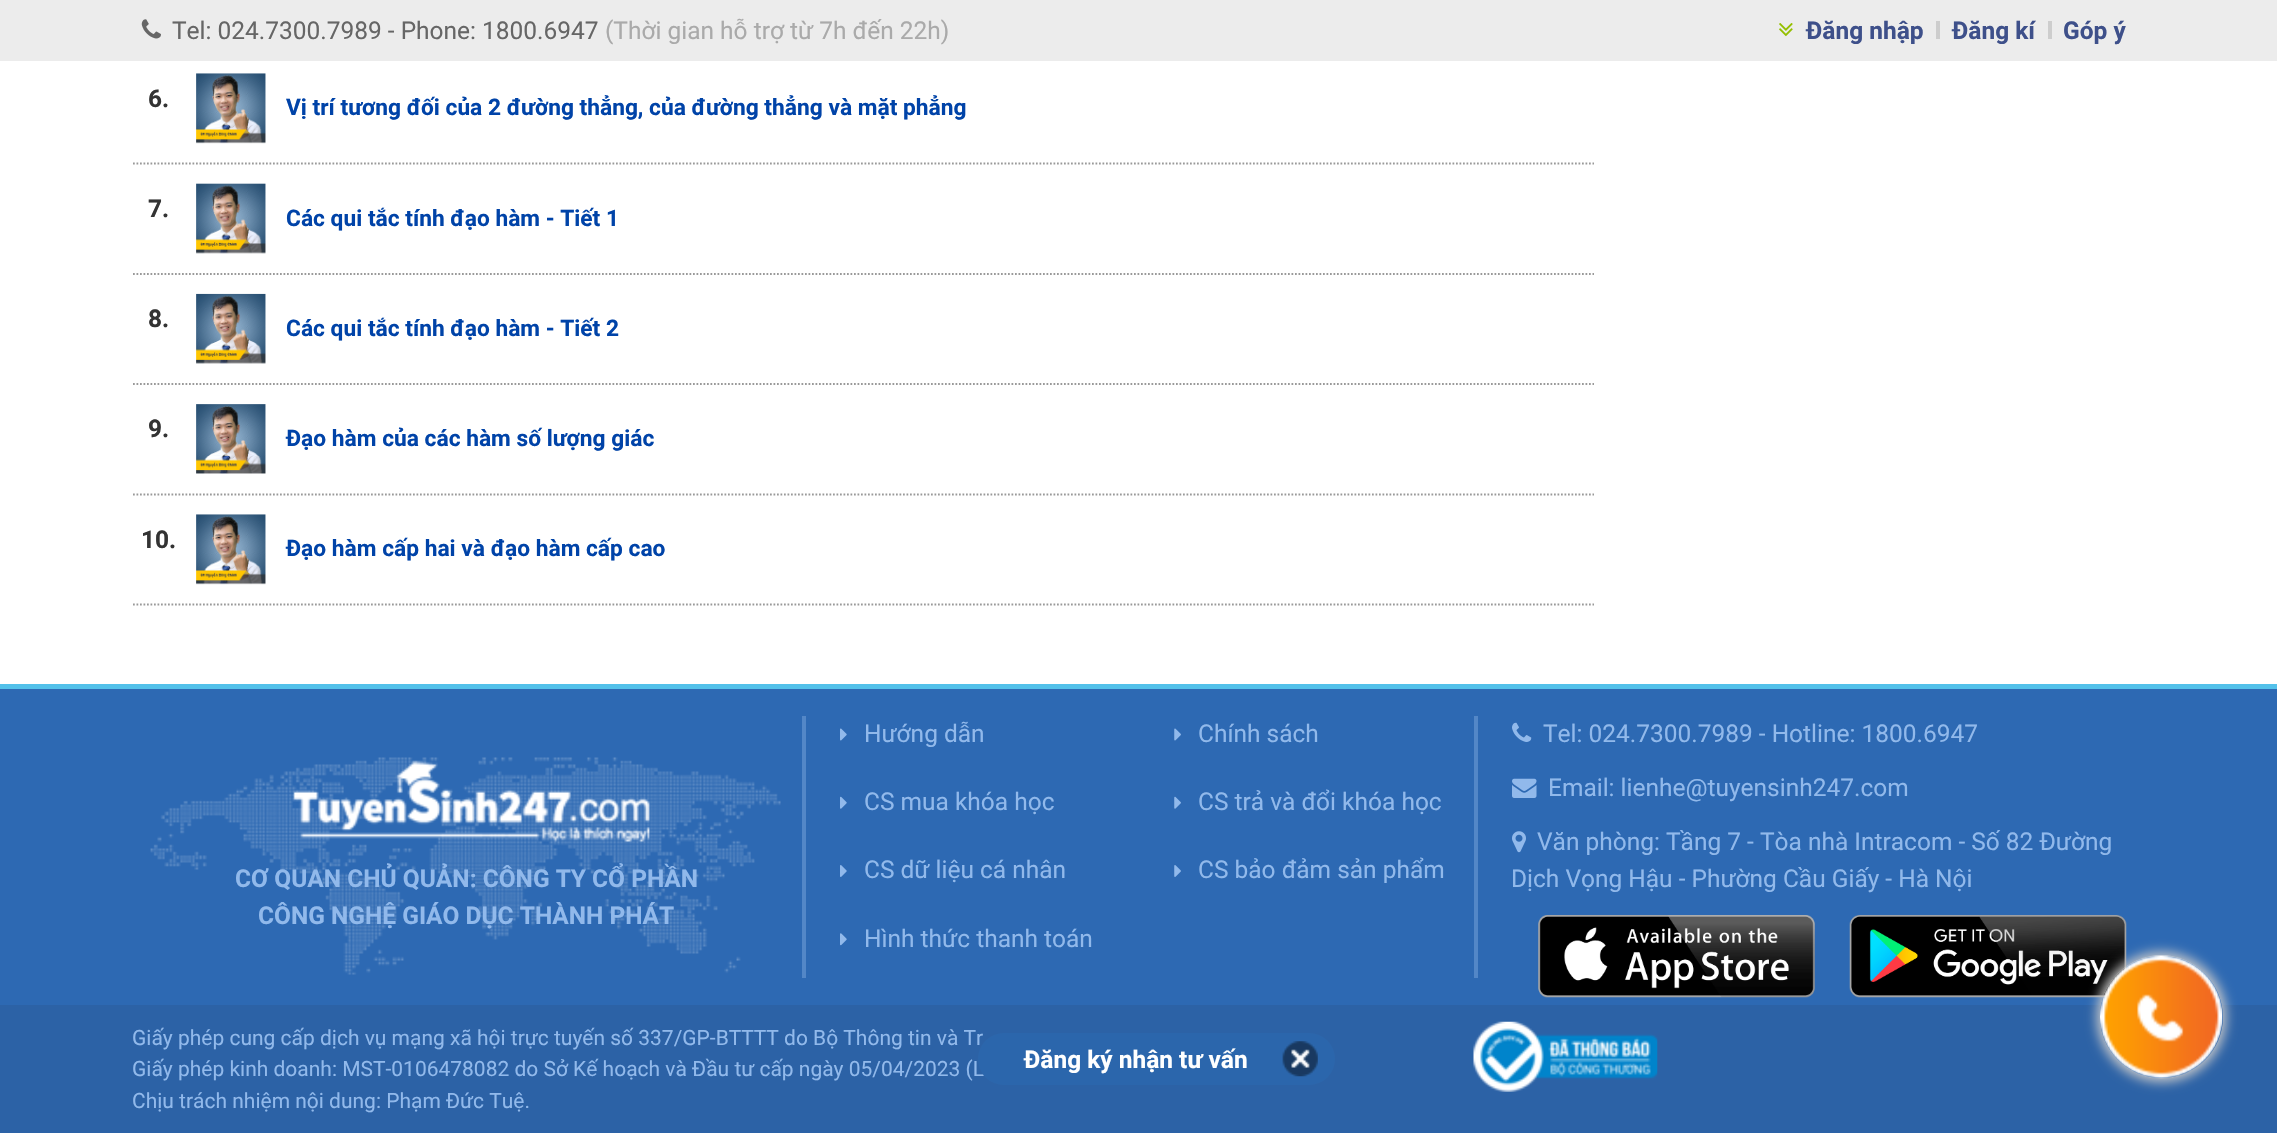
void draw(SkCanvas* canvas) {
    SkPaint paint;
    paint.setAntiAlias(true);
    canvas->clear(0xFFFFFFFF);
    paint.setColor(0xFFECECEC);
    canvas->drawRect(SkRect::MakeXYWH(0, 0, 2277, 61), paint);
    canvas->drawImageRect(SkImages::DeferredFromEncodedData(SkData::MakeFromFileName("img1.png")), SkRect::MakeXYWH(141, 19, 20, 20), SkSamplingOptions());
    SkFont font1(fontMgr->matchFamilyStyle("Roboto", SkFontStyle::Normal()), 24.5f);
    font1.setSubpixel(true);
    paint.setColor(0xFF666666);
    canvas->drawString("Tel: 024.7300.7989 - Phone: 1800.6947", 172, 39, font1, paint);
    paint.setColor(0xFFAAAAAA);
    canvas->drawString("(Thời gian hỗ trợ từ 7h đến 22h)", 605, 39, font1, paint);
    canvas->drawImageRect(SkImages::DeferredFromEncodedData(SkData::MakeFromFileName("img2.png")), SkRect::MakeXYWH(1779, 23, 14, 14), SkSamplingOptions());
    paint.setColor(0xFFCDCDCD);
    canvas->drawRect(SkRect::MakeXYWH(1936, 21, 4, 18), paint);
    SkFont font2(fontMgr->matchFamilyStyle("Roboto", SkFontStyle::Bold()), 24.5f);
    font2.setSubpixel(true);
    paint.setColor(0xFF3E508A);
    canvas->drawString("Đăng nhập", 1806, 39, font2, paint);
    paint.setColor(0xFFCDCDCD);
    canvas->drawRect(SkRect::MakeXYWH(2048, 21, 4, 18), paint);
    paint.setColor(0xFF3E508A);
    canvas->drawString("Đăng kí", 1952, 39, font2, paint);
    canvas->drawString("Góp ý", 2063, 39, font2, paint);
    paint.setStyle(SkPaint::kStroke_Style);
    paint.setStrokeWidth(1.8f);
    paint.setColor(0xFF999999);
    paint.setPathEffect(SkDashPathEffect::Make({{1.75f, 1.75f}}, 0));
    canvas->drawPath(SkPathBuilder().moveTo(133, 163.5f).lineTo(1594, 163.5f).detach(), paint);
    paint.setPathEffect(nullptr);
    paint.setStyle(SkPaint::kFill_Style);
    paint.setColor(0xFF333333);
    canvas->drawString("6.", 148, 107, font2, paint);
    canvas->drawImageRect(SkImages::DeferredFromEncodedData(SkData::MakeFromFileName("img3.png")), SkRect::MakeXYWH(196, 73, 70, 71), SkSamplingOptions());
    SkFont font3(fontMgr->matchFamilyStyle("Roboto", SkFontStyle::Bold()), 22.75f);
    font3.setSubpixel(true);
    paint.setColor(0xFF0043A8);
    canvas->drawString("Vị trí tương đối của 2 đường thẳng, của đường thẳng và mặt phẳng", 286, 115, font3, paint);
    paint.setStyle(SkPaint::kStroke_Style);
    paint.setColor(0xFF999999);
    paint.setPathEffect(SkDashPathEffect::Make({{1.75f, 1.75f}}, 0));
    canvas->drawPath(SkPathBuilder().moveTo(133, 274).lineTo(1594, 274).detach(), paint);
    paint.setPathEffect(nullptr);
    paint.setStyle(SkPaint::kFill_Style);
    paint.setColor(0xFF333333);
    canvas->drawString("7.", 148, 217, font2, paint);
    canvas->drawImageRect(SkImages::DeferredFromEncodedData(SkData::MakeFromFileName("img4.png")), SkRect::MakeXYWH(196, 183, 70, 71), SkSamplingOptions());
    paint.setColor(0xFF0043A8);
    canvas->drawString("Các qui tắc tính đạo hàm - Tiết 1", 286, 226, font3, paint);
    paint.setStyle(SkPaint::kStroke_Style);
    paint.setColor(0xFF999999);
    paint.setPathEffect(SkDashPathEffect::Make({{1.75f, 1.75f}}, 0));
    canvas->drawPath(SkPathBuilder().moveTo(133, 384).lineTo(1594, 384).detach(), paint);
    paint.setPathEffect(nullptr);
    paint.setStyle(SkPaint::kFill_Style);
    paint.setColor(0xFF333333);
    canvas->drawString("8.", 148, 327, font2, paint);
    canvas->drawImageRect(SkImages::DeferredFromEncodedData(SkData::MakeFromFileName("img5.png")), SkRect::MakeXYWH(196, 293, 70, 71), SkSamplingOptions());
    paint.setColor(0xFF0043A8);
    canvas->drawString("Các qui tắc tính đạo hàm - Tiết 2", 286, 336, font3, paint);
    paint.setStyle(SkPaint::kStroke_Style);
    paint.setColor(0xFF999999);
    paint.setPathEffect(SkDashPathEffect::Make({{1.75f, 1.75f}}, 0));
    canvas->drawPath(SkPathBuilder().moveTo(133, 494.5f).lineTo(1594, 494.5f).detach(), paint);
    paint.setPathEffect(nullptr);
    paint.setStyle(SkPaint::kFill_Style);
    paint.setColor(0xFF333333);
    canvas->drawString("9.", 148, 437, font2, paint);
    canvas->drawImageRect(SkImages::DeferredFromEncodedData(SkData::MakeFromFileName("img6.png")), SkRect::MakeXYWH(196, 404, 70, 70), SkSamplingOptions());
    paint.setColor(0xFF0043A8);
    canvas->drawString("Đạo hàm của các hàm số lượng giác", 286, 446, font3, paint);
    paint.setStyle(SkPaint::kStroke_Style);
    paint.setColor(0xFF999999);
    paint.setPathEffect(SkDashPathEffect::Make({{1.75f, 1.75f}}, 0));
    canvas->drawPath(SkPathBuilder().moveTo(133, 604.5f).lineTo(1594, 604.5f).detach(), paint);
    paint.setPathEffect(nullptr);
    paint.setStyle(SkPaint::kFill_Style);
    paint.setColor(0xFF333333);
    canvas->drawString("10.", 141, 548, font2, paint);
    canvas->drawImageRect(SkImages::DeferredFromEncodedData(SkData::MakeFromFileName("img7.png")), SkRect::MakeXYWH(196, 514, 70, 71), SkSamplingOptions());
    paint.setColor(0xFF0043A8);
    canvas->drawString("Đạo hàm cấp hai và đạo hàm cấp cao", 286, 556, font3, paint);
    paint.setColor(0xFF2C62A6);
    canvas->drawRect(SkRect::MakeXYWH(0, 1005, 2277, 128), paint);
    SkFont font4(fontMgr->matchFamilyStyle("Roboto", SkFontStyle::Normal()), 21);
    font4.setSubpixel(true);
    paint.setColor(0xFF91B9EB);
    canvas->drawString("Giấy phép cung cấp dịch vụ mạng xã hội trực tuyến số 337/GP-BTTTT do Bộ Thông tin và Tr", 132, 1045, font4, paint);
    canvas->drawString("Giấy phép kinh doanh: MST-0106478082 do Sở Kế hoạch và Đầu tư cấp ngày 05/04/2023 (L", 132, 1076, font4, paint);
    paint.setColor(0xFF2B66AC);
    canvas->drawRoundRect(SkRect::MakeXYWH(978, 1033, 357, 52), 26, 26, paint);
    paint.setColor(0xFFFFFFFF);
    canvas->drawString("Đăng ký nhận tư vấn", 1024, 1068, font2, paint);
    canvas->drawImageRect(SkImages::DeferredFromEncodedData(SkData::MakeFromFileName("img8.png")), SkRect::MakeXYWH(1282, 1041, 36, 36), SkSamplingOptions());
    paint.setColor(0xFF2D69B3);
    canvas->drawRect(SkRect::MakeXYWH(0, 689, 2277, 316), paint);
    paint.setColor(0xFF53C1EA);
    canvas->drawRect(SkRect::MakeXYWH(0, 684, 2277, 5), paint);
    canvas->drawImageRect(SkImages::DeferredFromEncodedData(SkData::MakeFromFileName("img9.png")), SkRect::MakeXYWH(150, 757, 631, 218), SkSamplingOptions());
    paint.setColor(0xFF5387C7);
    canvas->drawRect(SkRect::MakeXYWH(802, 716, 4, 262), paint);
    canvas->drawImageRect(SkImages::DeferredFromEncodedData(SkData::MakeFromFileName("img10.png")), SkRect::MakeXYWH(293, 760, 357, 82), SkSamplingOptions());
    paint.setColor(0xFF91B9EB);
    canvas->drawString("CƠ QUAN CHỦ QUẢN: CÔNG TY CỔ PHẦN", 235, 887, font2, paint);
    canvas->drawString("CÔNG NGHỆ GIÁO DỤC THÀNH PHÁT", 258, 924, font2, paint);
    paint.setColor(0xFF5387C7);
    canvas->drawRect(SkRect::MakeXYWH(1474, 716, 4, 262), paint);
    canvas->drawImageRect(SkImages::DeferredFromEncodedData(SkData::MakeFromFileName("img11.png")), SkRect::MakeXYWH(840, 728, 7, 13), SkSamplingOptions());
    paint.setColor(0xFF91B9EB);
    canvas->drawString("Hướng dẫn", 864, 742, font1, paint);
    canvas->drawImageRect(SkImages::DeferredFromEncodedData(SkData::MakeFromFileName("img12.png")), SkRect::MakeXYWH(1174, 728, 7, 13), SkSamplingOptions());
    canvas->drawString("Chính sách", 1198, 742, font1, paint);
    canvas->drawImageRect(SkImages::DeferredFromEncodedData(SkData::MakeFromFileName("img13.png")), SkRect::MakeXYWH(840, 796, 7, 13), SkSamplingOptions());
    canvas->drawString("CS mua khóa học", 864, 810, font1, paint);
    canvas->drawImageRect(SkImages::DeferredFromEncodedData(SkData::MakeFromFileName("img14.png")), SkRect::MakeXYWH(1174, 796, 7, 13), SkSamplingOptions());
    canvas->drawString("CS trả và đổi khóa học", 1198, 810, font1, paint);
    canvas->drawImageRect(SkImages::DeferredFromEncodedData(SkData::MakeFromFileName("img15.png")), SkRect::MakeXYWH(840, 865, 7, 12), SkSamplingOptions());
    canvas->drawString("CS dữ liệu cá nhân", 864, 878, font1, paint);
    canvas->drawImageRect(SkImages::DeferredFromEncodedData(SkData::MakeFromFileName("img16.png")), SkRect::MakeXYWH(1174, 865, 7, 12), SkSamplingOptions());
    canvas->drawString("CS bảo đảm sản phẩm", 1198, 878, font1, paint);
    canvas->drawImageRect(SkImages::DeferredFromEncodedData(SkData::MakeFromFileName("img17.png")), SkRect::MakeXYWH(840, 933, 7, 13), SkSamplingOptions());
    canvas->drawString("Hình thức thanh toán", 864, 947, font1, paint);
    canvas->drawImageRect(SkImages::DeferredFromEncodedData(SkData::MakeFromFileName("img18.png")), SkRect::MakeXYWH(1512, 722, 20, 20), SkSamplingOptions());
    canvas->drawString("Tel: 024.7300.7989 - Hotline: 1800.6947", 1543, 742, font1, paint);
    canvas->drawImageRect(SkImages::DeferredFromEncodedData(SkData::MakeFromFileName("img19.png")), SkRect::MakeXYWH(1512, 778, 25, 20), SkSamplingOptions());
    canvas->drawString("Email: lienhe@tuyensinh247.com", 1548, 796, font1, paint);
    canvas->drawImageRect(SkImages::DeferredFromEncodedData(SkData::MakeFromFileName("img20.png")), SkRect::MakeXYWH(1512, 831, 14, 22), SkSamplingOptions());
    canvas->drawString("Văn phòng: Tầng 7 - Tòa nhà Intracom - Số 82 Đường", 1537, 850, font1, paint);
    canvas->drawString("Dịch Vọng Hậu - Phường Cầu Giấy - Hà Nội", 1511, 887, font1, paint);
    canvas->drawImageRect(SkImages::DeferredFromEncodedData(SkData::MakeFromFileName("img21.png")), SkRect::MakeXYWH(1538, 915, 277, 83), SkSamplingOptions());
    canvas->drawImageRect(SkImages::DeferredFromEncodedData(SkData::MakeFromFileName("img22.png")), SkRect::MakeXYWH(1849, 915, 278, 83), SkSamplingOptions());
    canvas->drawString("Chịu trách nhiệm nội dung: Phạm Đức Tuệ.", 132, 1108, font4, paint);
    canvas->drawImageRect(SkImages::DeferredFromEncodedData(SkData::MakeFromFileName("img23.png")), SkRect::MakeXYWH(1473, 1021, 185, 71), SkSamplingOptions());
    canvas->save();
    canvas->clipPath(SkPathBuilder(SkPathFillType::kEvenOdd).moveTo(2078, 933).lineTo(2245, 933).lineTo(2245, 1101).lineTo(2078, 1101).close().moveTo(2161, 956).lineTo(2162, 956).cubicTo(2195.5f, 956, 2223, 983.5f, 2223, 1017).cubicTo(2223, 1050.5f, 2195.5f, 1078, 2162, 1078).lineTo(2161, 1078).cubicTo(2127.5f, 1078, 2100, 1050.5f, 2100, 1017).cubicTo(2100, 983.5f, 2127.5f, 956, 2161, 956).close().detach(), true);
    paint.setColor(0xFFC9C9C9);
    paint.setMaskFilter(SkMaskFilter::MakeBlur(kNormal_SkBlurStyle, 6));
    canvas->drawRoundRect(SkRect::MakeXYWH(2097, 952, 129, 130), 64.5f, 64.5f, paint);
    paint.setMaskFilter(nullptr);
    canvas->restore();
    canvas->drawImageRect(SkImages::DeferredFromEncodedData(SkData::MakeFromFileName("img24.png")), SkRect::MakeXYWH(2100, 955, 123, 124), SkSamplingOptions());
}
